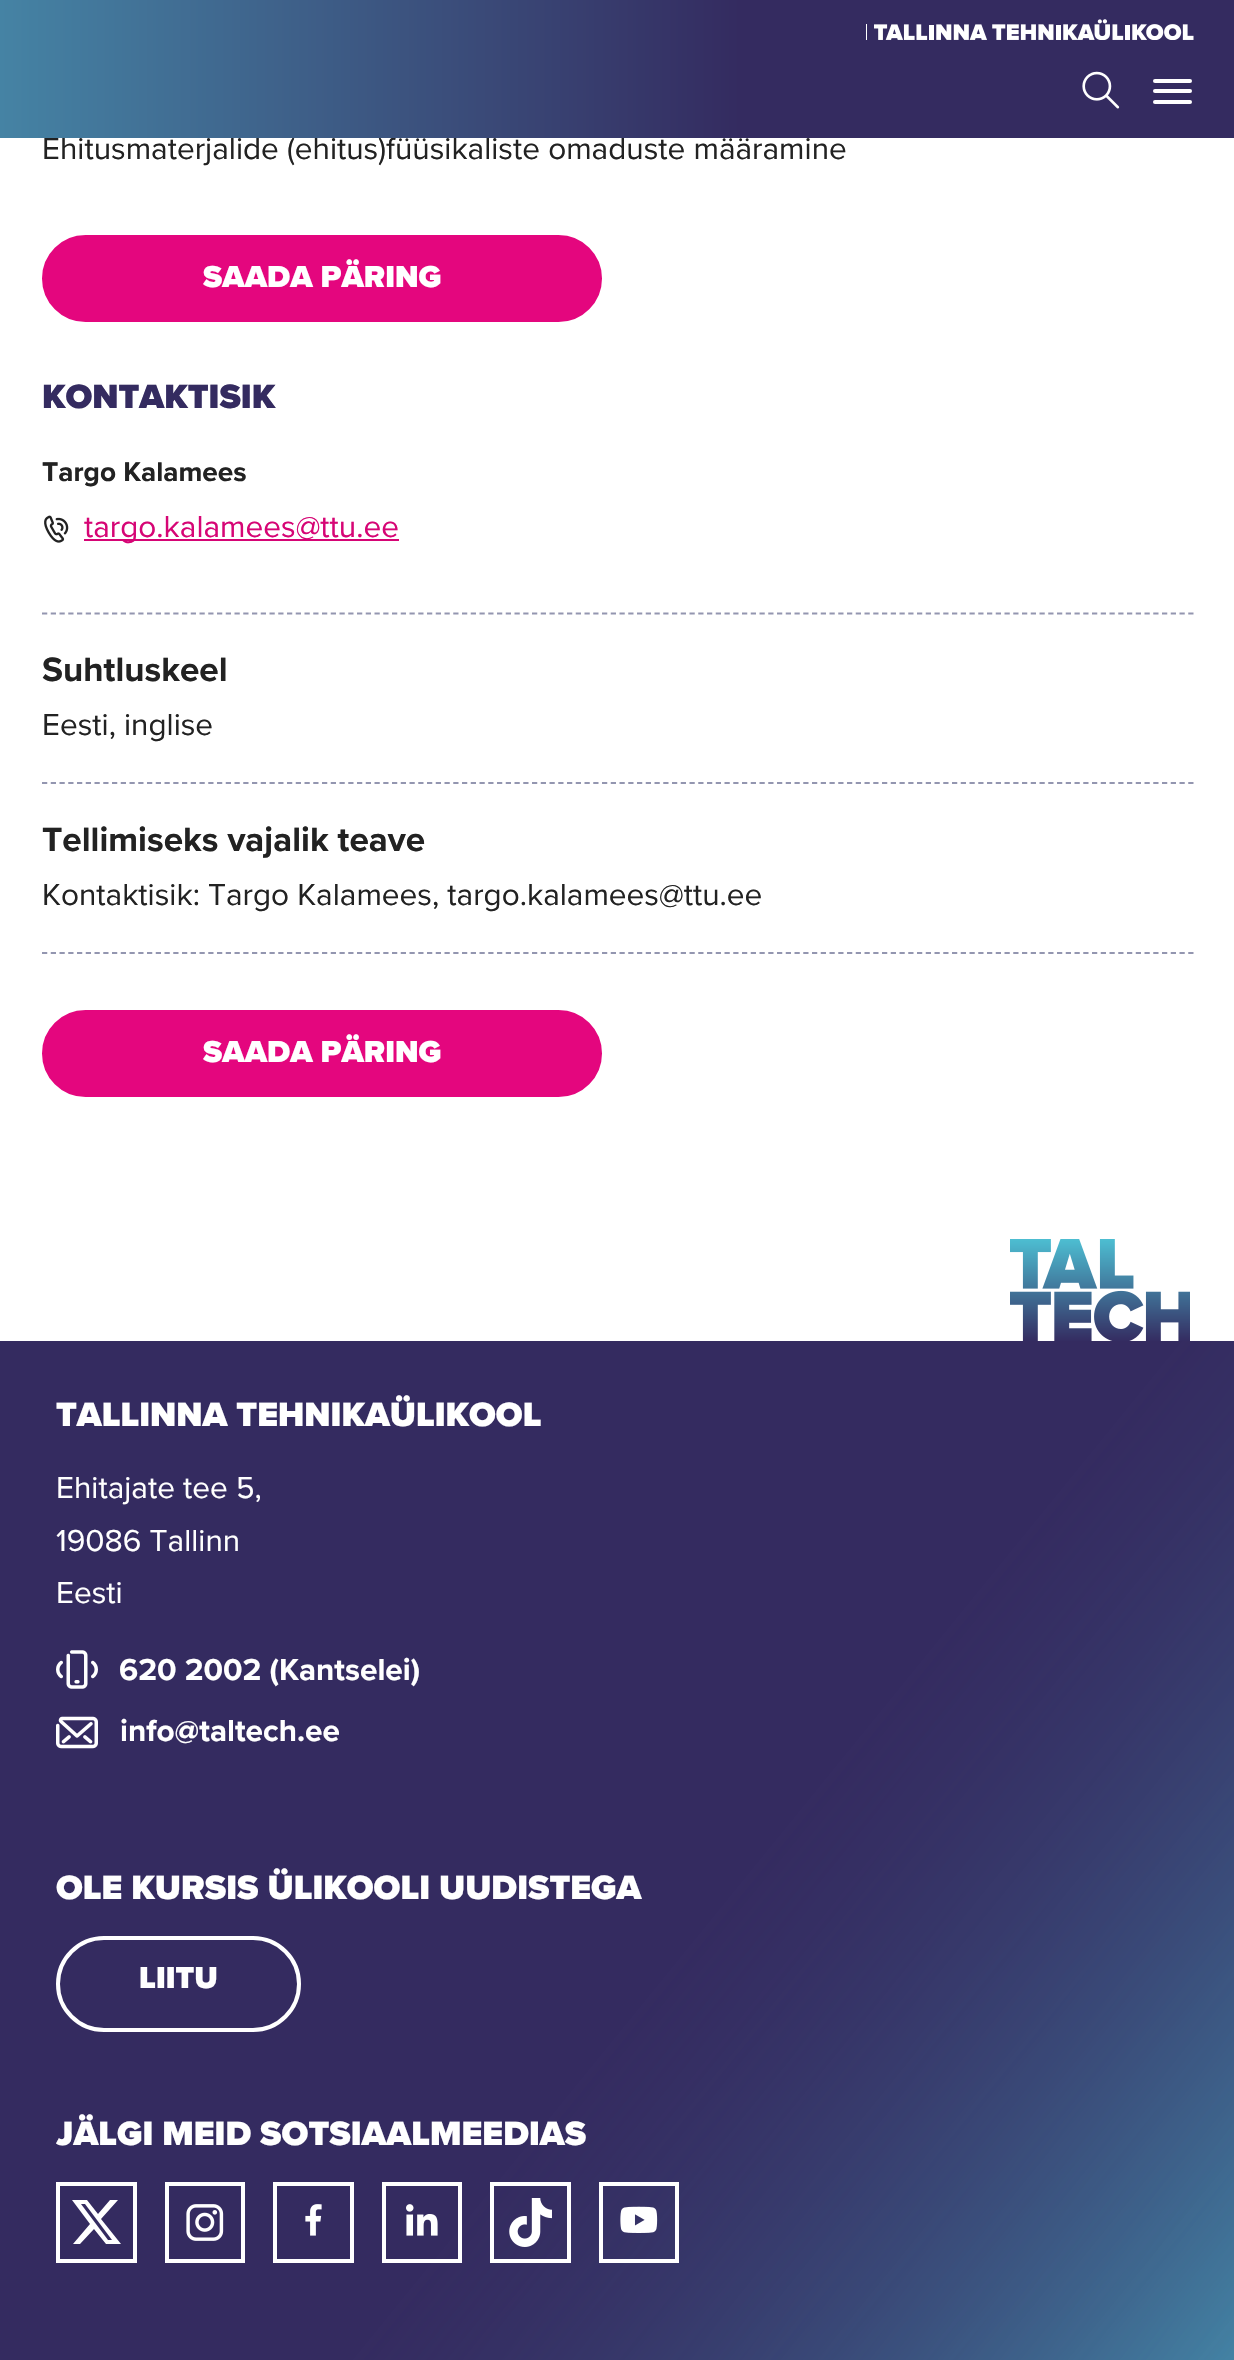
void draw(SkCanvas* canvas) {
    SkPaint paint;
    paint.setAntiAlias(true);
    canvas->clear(0xFFFFFFFF);
    SkFont font1(fontMgr->matchFamilyStyle("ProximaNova", SkFontStyle::Normal()), 31.5f);
    font1.setSubpixel(true);
    paint.setColor(0xFF222222);
    canvas->drawString("Ehitusmaterjalide (ehitus)füüsikaliste omaduste määramine", 42, 159, font1, paint);
    {
        const SkColor colors[] = {0xFF4583A4, 0xFF342B60};
        const float stops[] = {0, 0.6f};
        const SkPoint ends[] = {{0, 69}, {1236, 69}};
        paint.setShader(SkGradientShader::MakeLinear(ends, colors, stops, 2, SkTileMode::kClamp));
        paint.setAlpha(255);
    }
    canvas->drawRect(SkRect::MakeXYWH(0, 0, 1234, 138), paint);
    canvas->drawImageRect(SkImages::DeferredFromEncodedData(SkData::MakeFromFileName("img1.png")), SkRect::MakeXYWH(866, 19, 328, 21), SkSamplingOptions());
    canvas->drawImageRect(SkImages::DeferredFromEncodedData(SkData::MakeFromFileName("img2.png")), SkRect::MakeXYWH(1082, 71, 38, 38), SkSamplingOptions());
    paint.setShader(nullptr);
    paint.setColor(0xFFFFFFFF);
    canvas->drawRoundRect(SkRect::MakeXYWH(1153, 89, 39, 4), 2, 2, paint);
    canvas->drawRoundRect(SkRect::MakeXYWH(1153, 79, 39, 4), 2, 2, paint);
    canvas->drawRoundRect(SkRect::MakeXYWH(1153, 100, 39, 4), 2, 2, paint);
    paint.setColor(0xFFE4067E);
    canvas->drawRoundRect(SkRect::MakeXYWH(44, 237, 556, 83), 41.5f, 41.5f, paint);
    paint.setStyle(SkPaint::kStroke_Style);
    paint.setStrokeWidth(4);
    canvas->drawRoundRect(SkRect::MakeXYWH(44, 237, 556, 83), 41.5f, 41.5f, paint);
    SkFont font2(fontMgr->matchFamilyStyle("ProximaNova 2", SkFontStyle::Normal()), 31.5f);
    font2.setSubpixel(true);
    paint.setStyle(SkPaint::kFill_Style);
    paint.setColor(0xFFFFFFFF);
    canvas->drawString("SAADA PÄRING", 203, 287, font2, paint);
    SkFont font3(fontMgr->matchFamilyStyle("ProximaNova 2", SkFontStyle::Normal()), 35);
    font3.setSubpixel(true);
    paint.setColor(0xFF342B60);
    canvas->drawString("KONTAKTISIK", 42, 408, font3, paint);
    SkFont font4(fontMgr->matchFamilyStyle("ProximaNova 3", SkFontStyle::Normal()), 28);
    font4.setSubpixel(true);
    paint.setColor(0xFF222222);
    canvas->drawString("Targo Kalamees", 42, 481, font4, paint);
    canvas->drawImageRect(SkImages::DeferredFromEncodedData(SkData::MakeFromFileName("img3.png")), SkRect::MakeXYWH(44, 515, 25, 28), SkSamplingOptions());
    paint.setColor(0xFFD60575);
    canvas->drawRect(SkRect::MakeXYWH(84, 539, 315, 2), paint);
    canvas->drawString("targo.kalamees@ttu.ee", 84, 537, font1, paint);
    paint.setStyle(SkPaint::kStroke_Style);
    paint.setStrokeWidth(1.8f);
    paint.setColor(0xFF9396B0);
    paint.setPathEffect(SkDashPathEffect::Make({{5.25f, 3.5f}}, 0));
    canvas->drawPath(SkPathBuilder().moveTo(42, 613.5f).lineTo(1193.5f, 613.5f).detach(), paint);
    paint.setPathEffect(nullptr);
    SkFont font5(fontMgr->matchFamilyStyle("ProximaNova 3", SkFontStyle::Normal()), 35);
    font5.setSubpixel(true);
    paint.setStyle(SkPaint::kFill_Style);
    paint.setColor(0xFF222222);
    canvas->drawString("Suhtluskeel", 42, 681, font5, paint);
    canvas->drawString("Eesti, inglise", 42, 735, font1, paint);
    paint.setStyle(SkPaint::kStroke_Style);
    paint.setColor(0xFF9396B0);
    paint.setPathEffect(SkDashPathEffect::Make({{5.25f, 3.5f}}, 0));
    canvas->drawPath(SkPathBuilder().moveTo(42, 783).lineTo(1193.5f, 783).detach(), paint);
    paint.setPathEffect(nullptr);
    paint.setStyle(SkPaint::kFill_Style);
    paint.setColor(0xFF222222);
    canvas->drawString("Tellimiseks vajalik teave", 42, 851, font5, paint);
    canvas->drawString("Kontaktisik: Targo Kalamees, targo.kalamees@ttu.ee", 42, 905, font1, paint);
    paint.setStyle(SkPaint::kStroke_Style);
    paint.setColor(0xFF9396B0);
    paint.setPathEffect(SkDashPathEffect::Make({{5.25f, 3.5f}}, 0));
    canvas->drawPath(SkPathBuilder().moveTo(42, 953).lineTo(1193.5f, 953).detach(), paint);
    paint.setPathEffect(nullptr);
    paint.setStyle(SkPaint::kFill_Style);
    paint.setColor(0xFFE4067E);
    canvas->drawRoundRect(SkRect::MakeXYWH(44, 1012, 556, 83), 41.5f, 41.5f, paint);
    paint.setStyle(SkPaint::kStroke_Style);
    paint.setStrokeWidth(4);
    canvas->drawRoundRect(SkRect::MakeXYWH(44, 1012, 556, 83), 41.5f, 41.5f, paint);
    paint.setStyle(SkPaint::kFill_Style);
    paint.setColor(0xFFFFFFFF);
    canvas->drawString("SAADA PÄRING", 203, 1062, font2, paint);
    canvas->drawImageRect(SkImages::DeferredFromEncodedData(SkData::MakeFromFileName("img4.png")), SkRect::MakeXYWH(1010, 1239, 180, 102), SkSamplingOptions());
    {
        const SkColor colors[] = {0xFF342B60, 0xFF4DBED2};
        const float stops[] = {0.36f, 0.89f};
        const SkPoint ends[] = {{-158, 1556}, {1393, 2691}};
        paint.setShader(SkGradientShader::MakeLinear(ends, colors, stops, 2, SkTileMode::kClamp));
        paint.setAlpha(255);
    }
    canvas->drawRect(SkRect::MakeXYWH(358, 1341, 876, 1019), paint);
    {
        const SkColor colors[] = {0x00342B60, 0xFF342B60};
        const float stops[] = {0, 0.53f};
        const SkPoint ends[] = {{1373, 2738}, {-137, 1509}};
        paint.setShader(SkGradientShader::MakeLinear(ends, colors, stops, 2, SkTileMode::kClamp));
        paint.setAlpha(255);
    }
    canvas->drawRect(SkRect::MakeXYWH(0, 1341, 1234, 1019), paint);
    paint.setShader(nullptr);
    paint.setColor(0xFFFFFFFF);
    canvas->drawString("TALLINNA TEHNIKAÜLIKOOL", 56, 1426, font3, paint);
    canvas->drawString("Ehitajate tee 5,", 56, 1498, font1, paint);
    canvas->drawString("19086 Tallinn", 56, 1551, font1, paint);
    canvas->drawString("Eesti", 56, 1603, font1, paint);
    canvas->drawImageRect(SkImages::DeferredFromEncodedData(SkData::MakeFromFileName("img5.png")), SkRect::MakeXYWH(56, 1650, 42, 39), SkSamplingOptions());
    SkFont font6(fontMgr->matchFamilyStyle("ProximaNova 3", SkFontStyle::Normal()), 31.5f);
    font6.setSubpixel(true);
    canvas->drawString("620 2002 (Kantselei)", 119, 1680, font6, paint);
    canvas->drawImageRect(SkImages::DeferredFromEncodedData(SkData::MakeFromFileName("img6.png")), SkRect::MakeXYWH(56, 1716, 42, 33), SkSamplingOptions());
    canvas->drawString("info@taltech.ee", 120, 1741, font6, paint);
    canvas->drawString("OLE KURSIS ÜLIKOOLI UUDISTEGA", 56, 1899, font3, paint);
    paint.setStyle(SkPaint::kStroke_Style);
    canvas->drawRoundRect(SkRect::MakeXYWH(58, 1938, 241, 92), 46, 46, paint);
    paint.setStyle(SkPaint::kFill_Style);
    canvas->drawString("LIITU", 139, 1988, font2, paint);
    canvas->drawString("JÄLGI MEID SOTSIAALMEEDIAS", 56, 2145, font3, paint);
    paint.setStyle(SkPaint::kStroke_Style);
    canvas->drawRect(SkRect::MakeXYWH(58, 2184, 77, 77), paint);
    paint.setStyle(SkPaint::kFill_Style);
    canvas->drawPath(SkPathBuilder().moveTo(110, 2200).lineTo(118, 2200).lineTo(101, 2219).lineTo(121, 2244).lineTo(106, 2244).lineTo(94, 2229).lineTo(80, 2244).lineTo(73, 2244).lineTo(90, 2224).lineTo(72, 2200).lineTo(87, 2200).lineTo(98, 2214).close().moveTo(108, 2240).lineTo(112, 2240).lineTo(85, 2204).lineTo(81, 2204).close().detach(), paint);
    paint.setStyle(SkPaint::kStroke_Style);
    canvas->drawRect(SkRect::MakeXYWH(167, 2184, 76, 77), paint);
    canvas->drawImageRect(SkImages::DeferredFromEncodedData(SkData::MakeFromFileName("img7.png")), SkRect::MakeXYWH(186, 2204, 38, 37), SkSamplingOptions());
    canvas->drawRect(SkRect::MakeXYWH(275, 2184, 77, 77), paint);
    canvas->drawImageRect(SkImages::DeferredFromEncodedData(SkData::MakeFromFileName("img8.png")), SkRect::MakeXYWH(305, 2204, 17, 32), SkSamplingOptions());
    canvas->drawRect(SkRect::MakeXYWH(384, 2184, 76, 77), paint);
    canvas->drawImageRect(SkImages::DeferredFromEncodedData(SkData::MakeFromFileName("img9.png")), SkRect::MakeXYWH(406, 2204, 32, 32), SkSamplingOptions());
    canvas->drawRect(SkRect::MakeXYWH(492, 2184, 77, 77), paint);
    canvas->drawImageRect(SkImages::DeferredFromEncodedData(SkData::MakeFromFileName("img10.png")), SkRect::MakeXYWH(509, 2198, 43, 49), SkSamplingOptions());
    canvas->drawRect(SkRect::MakeXYWH(601, 2184, 76, 77), paint);
    canvas->drawImageRect(SkImages::DeferredFromEncodedData(SkData::MakeFromFileName("img11.png")), SkRect::MakeXYWH(620, 2206, 38, 27), SkSamplingOptions());
}
